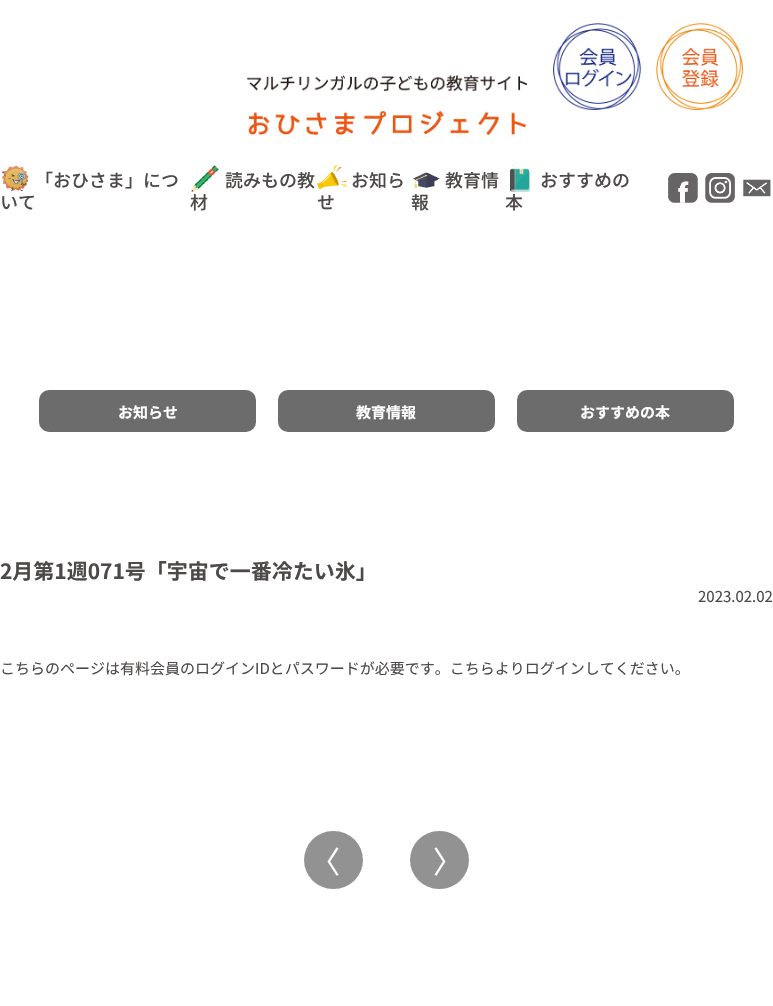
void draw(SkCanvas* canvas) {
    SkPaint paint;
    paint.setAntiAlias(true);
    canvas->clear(0xFFFFFFFF);
    canvas->drawImageRect(SkImages::DeferredFromEncodedData(SkData::MakeFromFileName("img1.png")), SkRect::MakeXYWH(553, 23, 88, 87), SkSamplingOptions());
    canvas->drawImageRect(SkImages::DeferredFromEncodedData(SkData::MakeFromFileName("img2.png")), SkRect::MakeXYWH(656, 23, 87, 87), SkSamplingOptions());
    canvas->drawImageRect(SkImages::DeferredFromEncodedData(SkData::MakeFromFileName("img3.png")), SkRect::MakeXYWH(247, 75, 280, 60), SkSamplingOptions());
    canvas->drawImageRect(SkImages::DeferredFromEncodedData(SkData::MakeFromFileName("img4.png")), SkRect::MakeXYWH(1, 165, 28, 27), SkSamplingOptions());
    SkFont font1(fontMgr->matchFamilyStyle("Noto Sans JP", SkFontStyle(500, SkFontStyle::kNormal_Width, SkFontStyle::kUpright_Slant)), 18);
    font1.setSubpixel(true);
    paint.setColor(0xFF4C4948);
    canvas->drawString("「おひさま」につ", 35, 187, font1, paint);
    canvas->drawString("いて", 0, 209, font1, paint);
    canvas->drawImageRect(SkImages::DeferredFromEncodedData(SkData::MakeFromFileName("img5.png")), SkRect::MakeXYWH(191, 165, 28, 27), SkSamplingOptions());
    canvas->drawString("読みもの教", 225, 187, font1, paint);
    canvas->drawString("材", 190, 209, font1, paint);
    canvas->drawImageRect(SkImages::DeferredFromEncodedData(SkData::MakeFromFileName("img6.png")), SkRect::MakeXYWH(317, 165, 30, 25), SkSamplingOptions());
    canvas->drawString("お知ら", 351, 187, font1, paint);
    canvas->drawString("せ", 317, 209, font1, paint);
    canvas->drawImageRect(SkImages::DeferredFromEncodedData(SkData::MakeFromFileName("img7.png")), SkRect::MakeXYWH(413, 172, 27, 17), SkSamplingOptions());
    canvas->drawString("教育情", 445, 187, font1, paint);
    canvas->drawString("報", 411, 209, font1, paint);
    canvas->drawImageRect(SkImages::DeferredFromEncodedData(SkData::MakeFromFileName("img8.png")), SkRect::MakeXYWH(510, 168, 20, 24), SkSamplingOptions());
    canvas->drawString("おすすめの", 540, 187, font1, paint);
    canvas->drawString("本", 505, 209, font1, paint);
    canvas->drawImageRect(SkImages::DeferredFromEncodedData(SkData::MakeFromFileName("img9.png")), SkRect::MakeXYWH(668, 173, 30, 30), SkSamplingOptions());
    canvas->drawImageRect(SkImages::DeferredFromEncodedData(SkData::MakeFromFileName("img10.png")), SkRect::MakeXYWH(705, 173, 30, 30), SkSamplingOptions());
    canvas->drawImageRect(SkImages::DeferredFromEncodedData(SkData::MakeFromFileName("img11.png")), SkRect::MakeXYWH(743, 179, 28, 18), SkSamplingOptions());
    paint.setColor(0xFF6D6C6C);
    canvas->drawRoundRect(SkRect::MakeXYWH(39, 390, 217, 42), 10, 10, paint);
    SkFont font2(fontMgr->matchFamilyStyle("Noto Sans JP", SkFontStyle::Bold()), 15);
    font2.setSubpixel(true);
    paint.setColor(0xFFFFFFFF);
    canvas->drawString("お知らせ", 118, 418, font2, paint);
    paint.setColor(0xFF6D6C6C);
    canvas->drawRoundRect(SkRect::MakeXYWH(278, 390, 217, 42), 10, 10, paint);
    paint.setColor(0xFFFFFFFF);
    canvas->drawString("教育情報", 356, 418, font2, paint);
    paint.setColor(0xFF6D6C6C);
    canvas->drawRoundRect(SkRect::MakeXYWH(517, 390, 217, 42), 10, 10, paint);
    paint.setColor(0xFFFFFFFF);
    canvas->drawString("おすすめの本", 580, 418, font2, paint);
    SkFont font3(fontMgr->matchFamilyStyle("Noto Sans JP", SkFontStyle::Bold()), 21);
    font3.setSubpixel(true);
    paint.setColor(0xFF4C4948);
    canvas->drawString("2月第1週071号「宇宙で一番冷たい氷」", 0, 579, font3, paint);
    SkFont font4(fontMgr->matchFamilyStyle("Noto Sans JP", SkFontStyle::Normal()), 15);
    font4.setSubpixel(true);
    canvas->drawString("2023.02.02", 698, 602, font4, paint);
    canvas->drawString("こちらのページは有料会員のログインIDとパスワードが必要です。こちらよりログインしてください。", 0, 674, font4, paint);
    paint.setColor(0xFF929292);
    canvas->drawRoundRect(SkRect::MakeXYWH(304, 831, 59, 58), 29, 29, paint);
    SkFont font5(fontMgr->matchFamilyStyle("Noto Sans JP", SkFontStyle::Normal()), 30);
    font5.setSubpixel(true);
    paint.setColor(0xFFFFFFFF);
    canvas->drawString("〈", 310, 873, font5, paint);
    paint.setColor(0xFF929292);
    canvas->drawRoundRect(SkRect::MakeXYWH(410, 831, 59, 58), 29, 29, paint);
    paint.setColor(0xFFFFFFFF);
    canvas->drawString("〉", 433, 873, font5, paint);
}
